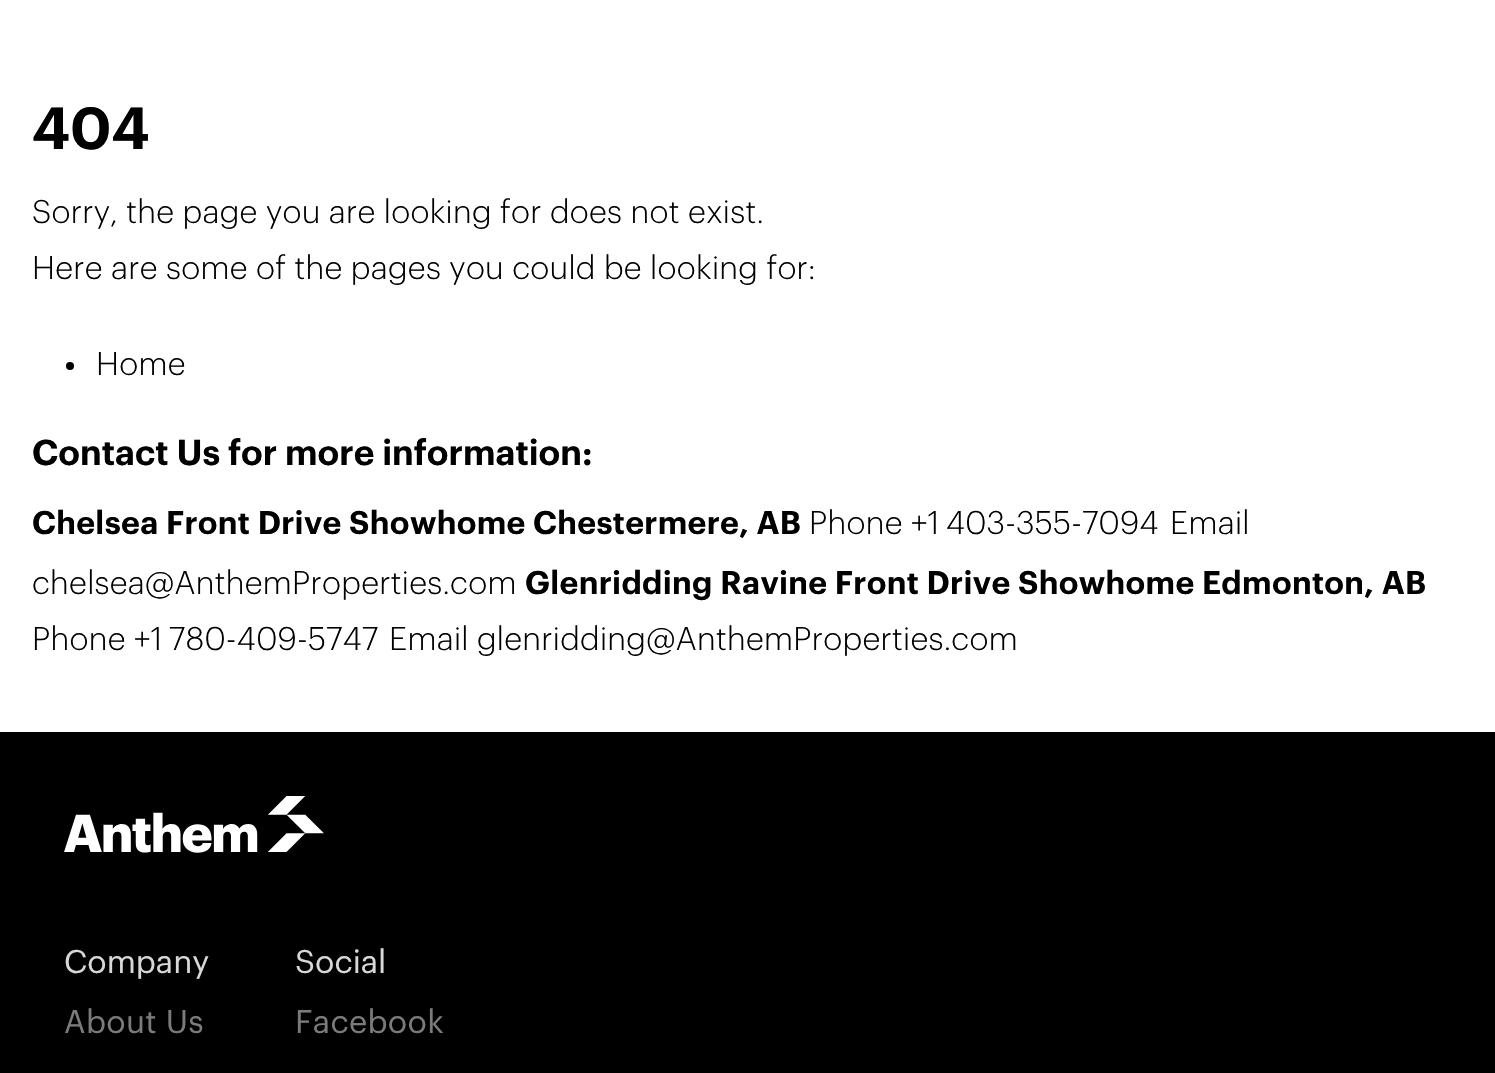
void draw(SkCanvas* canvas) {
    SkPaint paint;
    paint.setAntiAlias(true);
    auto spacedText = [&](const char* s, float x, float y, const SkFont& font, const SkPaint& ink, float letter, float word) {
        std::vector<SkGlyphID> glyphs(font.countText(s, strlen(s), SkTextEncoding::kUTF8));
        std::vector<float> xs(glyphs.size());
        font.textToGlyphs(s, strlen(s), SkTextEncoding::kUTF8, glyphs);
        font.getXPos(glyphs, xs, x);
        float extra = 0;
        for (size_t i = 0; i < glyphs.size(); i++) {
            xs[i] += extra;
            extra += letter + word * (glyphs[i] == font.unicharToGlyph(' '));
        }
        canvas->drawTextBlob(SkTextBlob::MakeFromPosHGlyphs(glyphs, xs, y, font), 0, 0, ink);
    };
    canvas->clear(0xFFFFFFFF);
    SkFont font1(fontMgr->matchFamilyStyle("Graphik", SkFontStyle(600, SkFontStyle::kNormal_Width, SkFontStyle::kUpright_Slant)), 58);
    font1.setSubpixel(true);
    paint.setColor(0xFF000000);
    canvas->drawString("404", 32, 149, font1, paint);
    SkFont font2(fontMgr->matchFamilyStyle("Graphik", SkFontStyle(300, SkFontStyle::kNormal_Width, SkFontStyle::kUpright_Slant)), 32);
    font2.setSubpixel(true);
    spacedText("Sorry, the page you are looking for does not exist.", 32, 223, font2, paint, 0.32f, 0);
    spacedText("Here are some of the pages you could be looking for:", 32, 279, font2, paint, 0.32f, 0);
    canvas->drawCircle(70, 366, 4, paint);
    spacedText("Home", 96, 375, font2, paint, 0.32f, 0);
    SkFont font3(fontMgr->matchFamilyStyle("Graphik", SkFontStyle(600, SkFontStyle::kNormal_Width, SkFontStyle::kUpright_Slant)), 35.25f);
    font3.setSubpixel(true);
    canvas->drawString("Contact Us for more information:", 32, 465, font3, paint);
    SkFont font4(fontMgr->matchFamilyStyle("Graphik", SkFontStyle(600, SkFontStyle::kNormal_Width, SkFontStyle::kUpright_Slant)), 32);
    font4.setSubpixel(true);
    spacedText("Chelsea Front Drive Showhome Chestermere, AB", 32, 534, font4, paint, 0.32f, 0);
    spacedText("Phone", 809, 534, font2, paint, 0.32f, 0);
    spacedText("+1 403-355-7094", 911, 534, font2, paint, 0.32f, -2);
    spacedText("Email", 1170, 534, font2, paint, 0.32f, 0);
    spacedText("chelsea@AnthemProperties.com", 32, 594, font2, paint, 0.32f, 0);
    spacedText("Glenridding Ravine Front Drive Showhome Edmonton, AB", 525, 594, font4, paint, 0.32f, 0);
    spacedText("Phone", 32, 650, font2, paint, 0.32f, 0);
    spacedText("+1 780-409-5747", 134, 650, font2, paint, 0.32f, -2);
    spacedText("Email glenridding@AnthemProperties.com", 389, 650, font2, paint, 0.32f, 0);
    canvas->drawRect(SkRect::MakeXYWH(0, 732, 1495, 341), paint);
    canvas->drawImageRect(SkImages::DeferredFromEncodedData(SkData::MakeFromFileName("img1.png")), SkRect::MakeXYWH(64, 796, 260, 57), SkSamplingOptions());
    SkFont font5(fontMgr->matchFamilyStyle("Graphik", SkFontStyle::Normal()), 32);
    font5.setSubpixel(true);
    paint.setColor(0xFFD8D8D8);
    canvas->drawString("Company", 64, 973, font5, paint);
    paint.setColor(0xFF7B7B7B);
    spacedText("About Us", 64, 1033, font5, paint, 0.32f, 0);
    paint.setColor(0xFFD8D8D8);
    canvas->drawString("Social", 295, 973, font5, paint);
    paint.setColor(0xFF7B7B7B);
    spacedText("Facebook", 295, 1033, font5, paint, 0.32f, 0);
}
